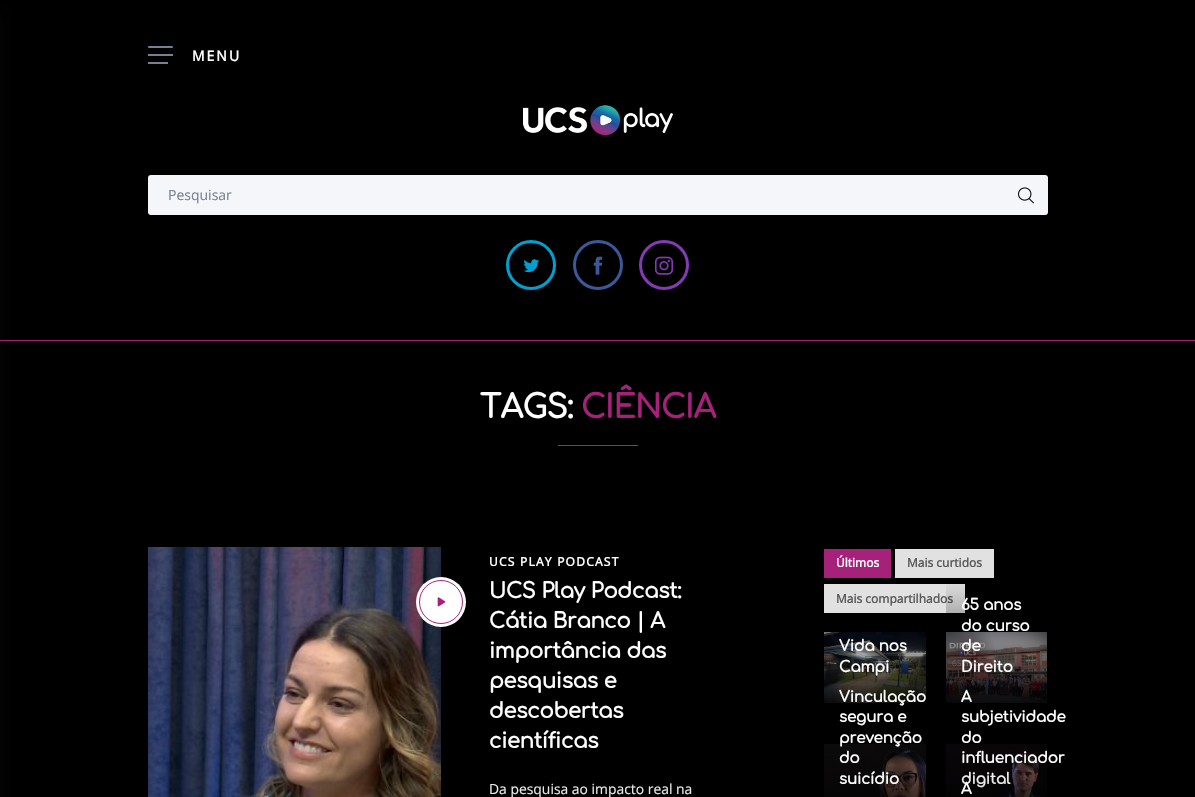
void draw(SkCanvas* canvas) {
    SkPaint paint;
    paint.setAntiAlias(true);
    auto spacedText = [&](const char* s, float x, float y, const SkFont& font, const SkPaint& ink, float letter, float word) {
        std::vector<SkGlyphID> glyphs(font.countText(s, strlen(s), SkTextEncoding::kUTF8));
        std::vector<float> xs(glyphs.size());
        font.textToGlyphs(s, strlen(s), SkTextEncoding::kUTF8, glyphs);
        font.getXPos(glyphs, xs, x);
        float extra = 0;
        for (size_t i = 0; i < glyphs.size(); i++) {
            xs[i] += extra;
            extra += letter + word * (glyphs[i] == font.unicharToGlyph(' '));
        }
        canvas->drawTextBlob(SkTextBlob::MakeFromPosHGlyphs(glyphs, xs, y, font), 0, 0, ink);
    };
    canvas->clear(0xFF000000);
    paint.setColor(0xFFA6217A);
    canvas->drawRect(SkRect::MakeXYWH(0, 340, 1195, 1), paint);
    paint.setColor(0x331E1E1E);
    paint.setMaskFilter(SkMaskFilter::MakeBlur(kNormal_SkBlurStyle, 5));
    canvas->drawRect(SkRect::MakeXYWH(-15, 15, 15, 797), paint);
    paint.setMaskFilter(nullptr);
    paint.setColor(0xFF777F94);
    canvas->drawRoundRect(SkRect::MakeXYWH(148, 46, 25, 2), 1, 1, paint);
    canvas->drawRect(SkRect::MakeXYWH(148, 54, 25, 2), paint);
    canvas->drawRect(SkRect::MakeXYWH(148, 62, 20, 2), paint);
    SkFont font1(fontMgr->matchFamilyStyle("Open Sans", SkFontStyle::Bold()), 14);
    font1.setSubpixel(true);
    paint.setColor(0xFFFFFFFF);
    spacedText("MENU", 192, 61, font1, paint, 2, 0);
    canvas->drawImageRect(SkImages::DeferredFromEncodedData(SkData::MakeFromFileName("img1.png")), SkRect::MakeXYWH(523, 105, 150, 31), SkSamplingOptions());
    paint.setColor(0xFFF5F6FA);
    canvas->drawRoundRect(SkRect::MakeXYWH(148, 175, 900, 40), 3, 3, paint);
    SkFont font2(fontMgr->matchFamilyStyle("Open Sans", SkFontStyle::Normal()), 14);
    font2.setSubpixel(true);
    paint.setColor(0xFF777F94);
    canvas->drawString("Pesquisar", 168, 200, font2, paint);
    canvas->drawImageRect(SkImages::DeferredFromEncodedData(SkData::MakeFromFileName("img2.png")), SkRect::MakeXYWH(1018, 187, 16, 17), SkSamplingOptions());
    paint.setStyle(SkPaint::kStroke_Style);
    paint.setStrokeWidth(3);
    paint.setColor(0xFF00A0D1);
    canvas->drawCircle(531, 265, 23.5f, paint);
    canvas->drawImageRect(SkImages::DeferredFromEncodedData(SkData::MakeFromFileName("img3.png")), SkRect::MakeXYWH(523, 259, 17, 14), SkSamplingOptions());
    paint.setColor(0xFF3B5998);
    canvas->drawCircle(598, 265, 23.5f, paint);
    canvas->drawImageRect(SkImages::DeferredFromEncodedData(SkData::MakeFromFileName("img4.png")), SkRect::MakeXYWH(593, 256, 10, 19), SkSamplingOptions());
    paint.setColor(0xFF833AB4);
    canvas->drawCircle(664, 265, 23.5f, paint);
    canvas->drawImageRect(SkImages::DeferredFromEncodedData(SkData::MakeFromFileName("img5.png")), SkRect::MakeXYWH(655, 256, 18, 19), SkSamplingOptions());
    SkFont font3(fontMgr->matchFamilyStyle("Comfortaa", SkFontStyle::Bold()), 32);
    font3.setSubpixel(true);
    paint.setStyle(SkPaint::kFill_Style);
    paint.setColor(0xFFFFFFFF);
    spacedText("TAGS:", 480, 418, font3, paint, -0.5f, 0);
    paint.setColor(0xFFA6217A);
    spacedText("CIÊNCIA", 581, 418, font3, paint, -0.5f, 0);
    canvas->drawRect(SkRect::MakeXYWH(558, 445, 80, 1), paint);
    canvas->drawImageRect(SkImages::DeferredFromEncodedData(SkData::MakeFromFileName("img6.png")), SkRect::MakeXYWH(148, 547, 293, 250), SkSamplingOptions());
    paint.setColor(0xFFFFFFFF);
    canvas->drawCircle(441, 602, 25, paint);
    paint.setStyle(SkPaint::kStroke_Style);
    paint.setStrokeWidth(1);
    paint.setColor(0xFFA6217A);
    canvas->drawCircle(441, 602, 21.5f, paint);
    canvas->drawImageRect(SkImages::DeferredFromEncodedData(SkData::MakeFromFileName("img7.png")), SkRect::MakeXYWH(437, 597, 9, 10), SkSamplingOptions());
    SkFont font4(fontMgr->matchFamilyStyle("Open Sans", SkFontStyle::Bold()), 12);
    font4.setSubpixel(true);
    paint.setStyle(SkPaint::kFill_Style);
    paint.setColor(0xFFFFFFFF);
    spacedText("UCS PLAY PODCAST", 489, 566, font4, paint, 1.25f, 0);
    SkFont font5(fontMgr->matchFamilyStyle("Comfortaa", SkFontStyle::Bold()), 21);
    font5.setSubpixel(true);
    spacedText("UCS Play Podcast:", 489, 598, font5, paint, -0.25f, 0);
    spacedText("Cátia Branco | A", 489, 628, font5, paint, -0.25f, 0);
    spacedText("importância das", 489, 658, font5, paint, -0.25f, 0);
    spacedText("pesquisas e", 489, 688, font5, paint, -0.25f, 0);
    spacedText("descobertas", 489, 718, font5, paint, -0.25f, 0);
    spacedText("científicas", 489, 748, font5, paint, -0.25f, 0);
    SkFont font6(fontMgr->matchFamilyStyle("Open Sans", SkFontStyle::Normal()), 13.9f);
    font6.setSubpixel(true);
    paint.setColor(0xFFE9E9E9);
    canvas->drawString("Da pesquisa ao impacto real na", 489, 794, font6, paint);
    paint.setColor(0xFFA6217A);
    canvas->drawRect(SkRect::MakeXYWH(824, 549, 67, 29), paint);
    paint.setColor(0xFFFFFFFF);
    canvas->drawString("Últimos", 836, 567, font4, paint);
    paint.setColor(0xFFE1E1E1);
    canvas->drawRect(SkRect::MakeXYWH(895, 549, 99, 29), paint);
    paint.setColor(0xFF5A5A5A);
    canvas->drawString("Mais curtidos", 907, 567, font4, paint);
    paint.setColor(0xFFE1E1E1);
    canvas->drawRect(SkRect::MakeXYWH(824, 584, 141, 29), paint);
    paint.setColor(0xFF5A5A5A);
    canvas->drawString("Mais compartilhados", 836, 603, font4, paint);
    canvas->drawImageRect(SkImages::DeferredFromEncodedData(SkData::MakeFromFileName("img8.png")), SkRect::MakeXYWH(824, 632, 102, 71), SkSamplingOptions());
    {
        const SkColor colors[] = {0x00000000, 0xD9000000};
        const float stops[] = {0, 1};
        const SkPoint ends[] = {{875, 622}, {875, 703}};
        paint.setShader(SkGradientShader::MakeLinear(ends, colors, stops, 2, SkTileMode::kClamp));
        paint.setAlpha(255);
    }
    canvas->drawRect(SkRect::MakeXYWH(824, 632, 102, 71), paint);
    SkFont font7(fontMgr->matchFamilyStyle("Comfortaa", SkFontStyle::Bold()), 15);
    font7.setSubpixel(true);
    paint.setShader(nullptr);
    paint.setColor(0xFFFFFFFF);
    spacedText("Vida nos", 839, 651, font7, paint, -0.1f, 0);
    spacedText("Campi", 839, 672, font7, paint, -0.1f, 0);
    canvas->drawImageRect(SkImages::DeferredFromEncodedData(SkData::MakeFromFileName("img9.png")), SkRect::MakeXYWH(946, 632, 101, 71), SkSamplingOptions());
    {
        const SkColor colors[] = {0x00000000, 0xD9000000};
        const float stops[] = {0, 1};
        const SkPoint ends[] = {{997, 581}, {997, 703}};
        paint.setShader(SkGradientShader::MakeLinear(ends, colors, stops, 2, SkTileMode::kClamp));
        paint.setAlpha(255);
    }
    canvas->drawRect(SkRect::MakeXYWH(946, 584, 101, 119), paint);
    paint.setShader(nullptr);
    paint.setColor(0xFFFFFFFF);
    spacedText("65 anos", 961, 610, font7, paint, -0.1f, 0);
    spacedText("do curso", 961, 631, font7, paint, -0.1f, 0);
    spacedText("de", 961, 651, font7, paint, -0.1f, 0);
    spacedText("Direito", 961, 672, font7, paint, -0.1f, 0);
    canvas->drawImageRect(SkImages::DeferredFromEncodedData(SkData::MakeFromFileName("img10.png")), SkRect::MakeXYWH(824, 744, 102, 53), SkSamplingOptions());
    {
        const SkColor colors[] = {0x00000000, 0xD9000000};
        const float stops[] = {0, 1};
        const SkPoint ends[] = {{875, 673}, {875, 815}};
        paint.setShader(SkGradientShader::MakeLinear(ends, colors, stops, 2, SkTileMode::kClamp));
        paint.setAlpha(255);
    }
    canvas->drawRect(SkRect::MakeXYWH(824, 679, 102, 118), paint);
    paint.setShader(nullptr);
    paint.setColor(0xFFFFFFFF);
    spacedText("Vinculação", 839, 702, font7, paint, -0.1f, 0);
    spacedText("segura e", 839, 722, font7, paint, -0.1f, 0);
    spacedText("prevenção", 839, 743, font7, paint, -0.1f, 0);
    spacedText("do", 839, 763, font7, paint, -0.1f, 0);
    spacedText("suicídio", 839, 784, font7, paint, -0.1f, 0);
    canvas->drawImageRect(SkImages::DeferredFromEncodedData(SkData::MakeFromFileName("img11.png")), SkRect::MakeXYWH(946, 744, 101, 53), SkSamplingOptions());
    {
        const SkColor colors[] = {0x00000000, 0xD9000000};
        const float stops[] = {0, 1};
        const SkPoint ends[] = {{997, 673}, {997, 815}};
        paint.setShader(SkGradientShader::MakeLinear(ends, colors, stops, 2, SkTileMode::kClamp));
        paint.setAlpha(255);
    }
    canvas->drawRect(SkRect::MakeXYWH(946, 679, 101, 118), paint);
    paint.setShader(nullptr);
    paint.setColor(0xFFFFFFFF);
    spacedText("A", 961, 702, font7, paint, -0.1f, 0);
    spacedText("subjetividade", 961, 722, font7, paint, -0.1f, 0);
    spacedText("do", 961, 743, font7, paint, -0.1f, 0);
    spacedText("influenciador", 961, 763, font7, paint, -0.1f, 0);
    spacedText("digital", 961, 784, font7, paint, -0.1f, 0);
    {
        const SkColor colors[] = {0x00000000, 0xD9000000};
        const float stops[] = {0, 1};
        const SkPoint ends[] = {{997, 765}, {997, 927}};
        paint.setShader(SkGradientShader::MakeLinear(ends, colors, stops, 2, SkTileMode::kClamp));
        paint.setAlpha(255);
    }
    canvas->drawRect(SkRect::MakeXYWH(961, 770, 77, 27), paint);
    paint.setShader(nullptr);
    paint.setColor(0xFFFFFFFF);
    spacedText("A", 961, 794, font7, paint, -0.1f, 0);
}
